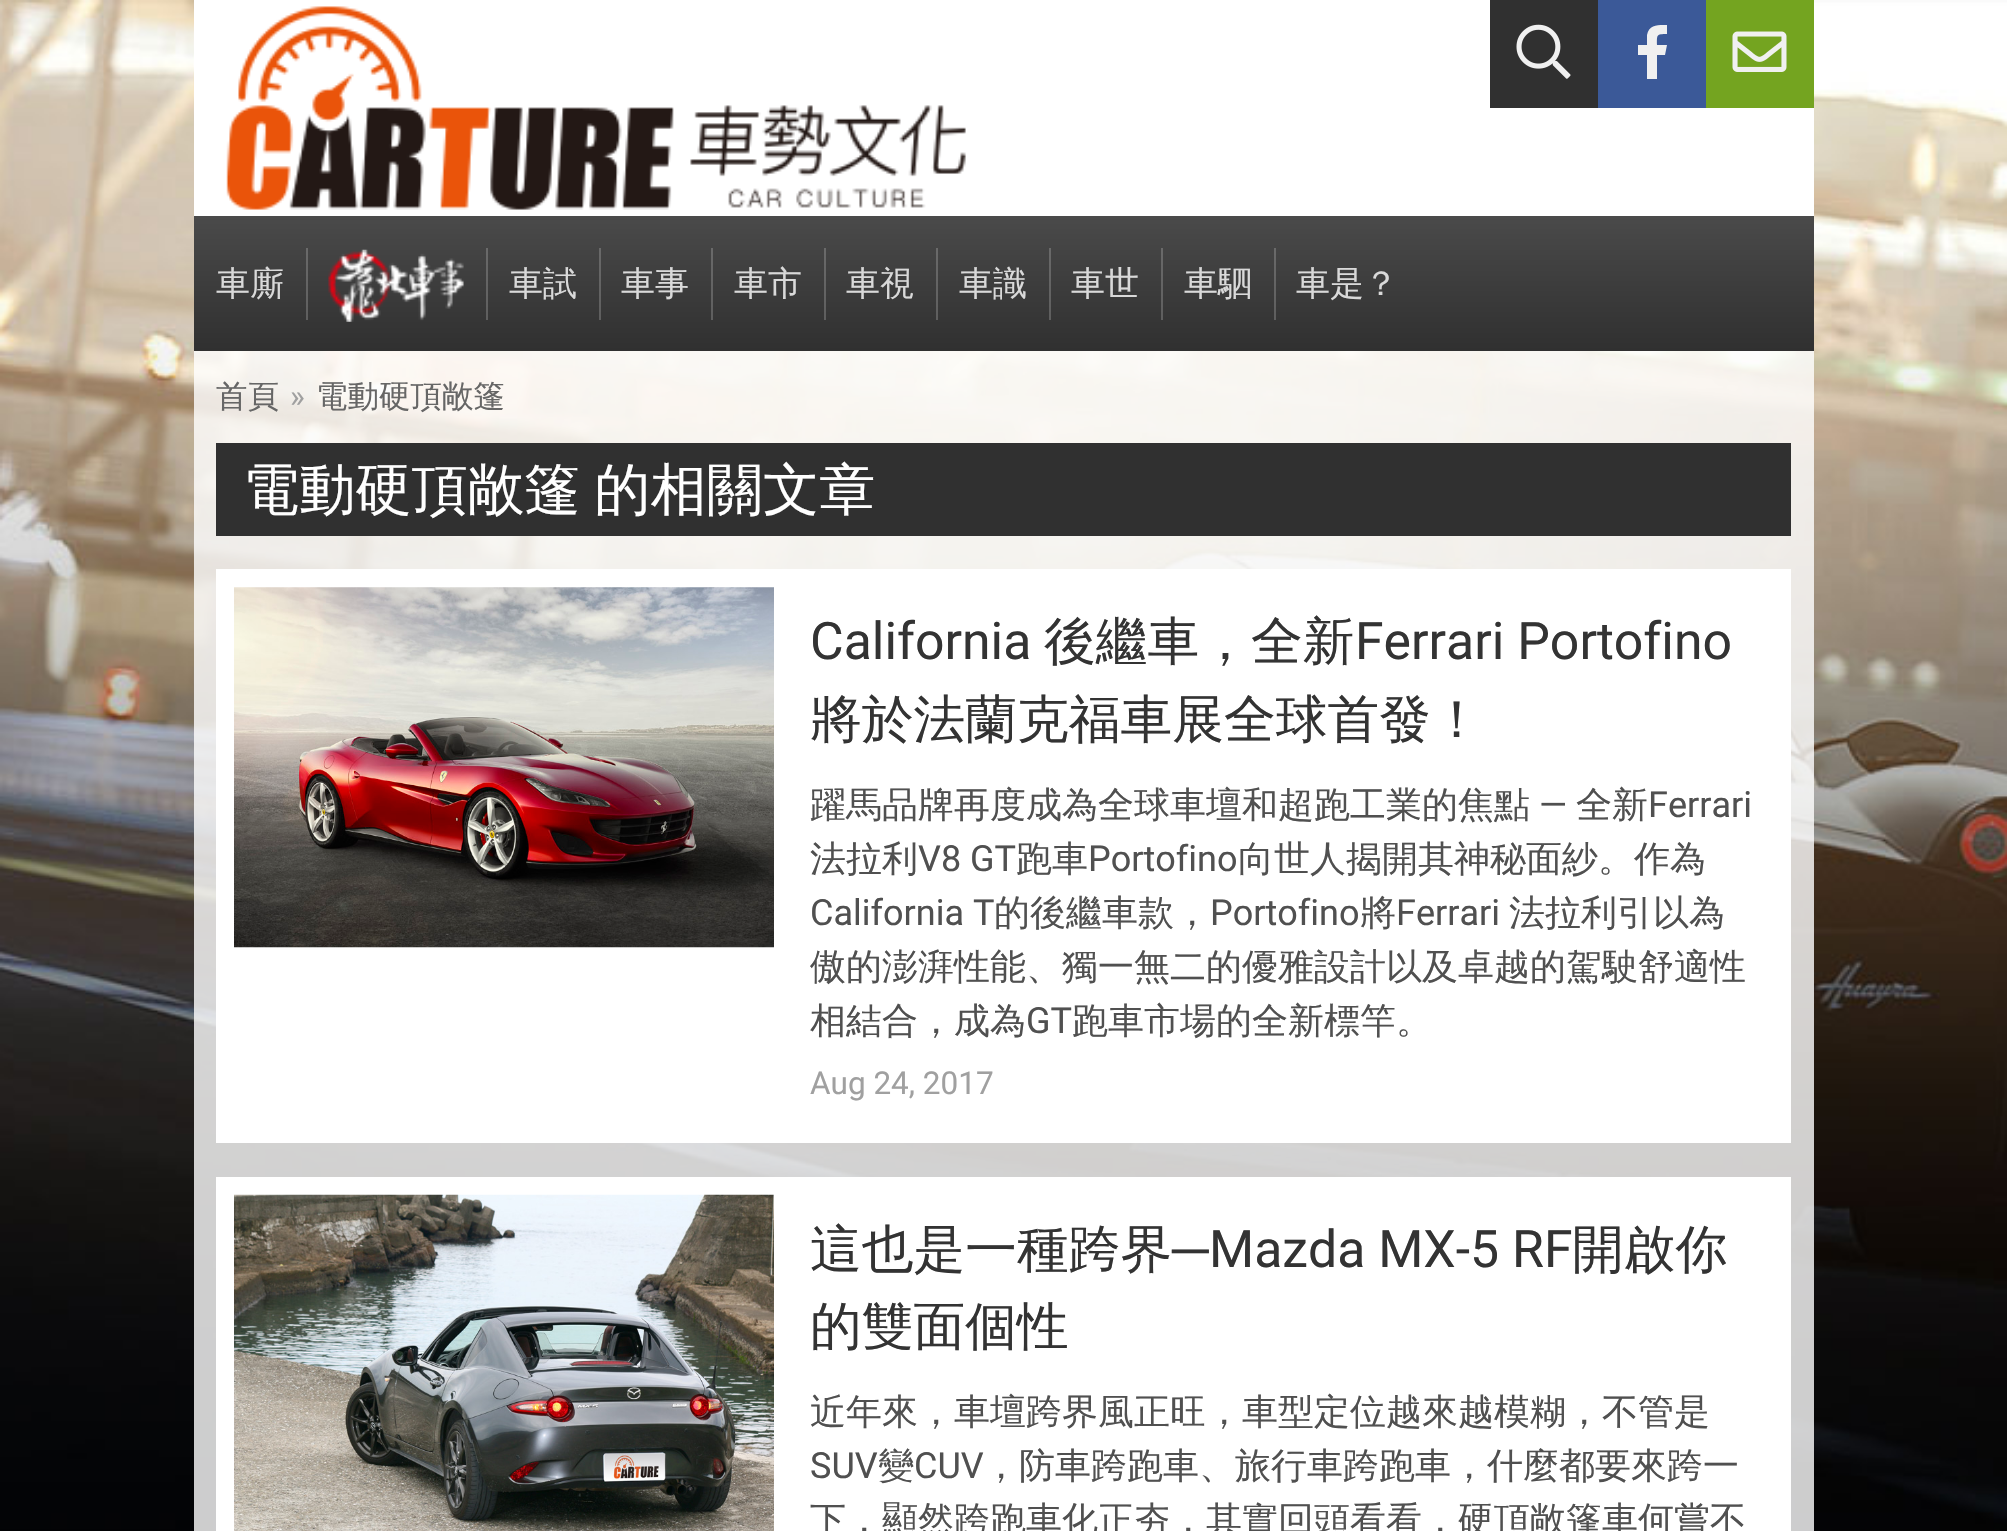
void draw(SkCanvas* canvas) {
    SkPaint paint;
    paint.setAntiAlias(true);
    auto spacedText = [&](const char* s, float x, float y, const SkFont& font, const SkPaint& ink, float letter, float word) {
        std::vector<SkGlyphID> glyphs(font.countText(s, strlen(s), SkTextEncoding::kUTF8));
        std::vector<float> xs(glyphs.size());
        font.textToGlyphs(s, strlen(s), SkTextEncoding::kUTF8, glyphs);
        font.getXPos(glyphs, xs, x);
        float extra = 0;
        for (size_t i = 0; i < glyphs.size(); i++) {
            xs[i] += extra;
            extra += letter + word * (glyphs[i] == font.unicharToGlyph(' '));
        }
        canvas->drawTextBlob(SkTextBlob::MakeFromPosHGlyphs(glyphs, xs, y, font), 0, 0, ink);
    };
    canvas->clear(0xFFFFFFFF);
    canvas->drawImageRect(SkImages::DeferredFromEncodedData(SkData::MakeFromFileName("img1.png")), SkRect::MakeXYWH(0, 0, 2007, 1531), SkSamplingOptions());
    paint.setColor(0xFFFFFFFF);
    canvas->drawRect(SkRect::MakeXYWH(194, 0, 1620, 216), paint);
    canvas->drawImageRect(SkImages::DeferredFromEncodedData(SkData::MakeFromFileName("img2.png")), SkRect::MakeXYWH(226, 6, 740, 204), SkSamplingOptions());
    paint.setColor(0xFF303030);
    canvas->drawRect(SkRect::MakeXYWH(1490, 0, 108, 108), paint);
    canvas->drawImageRect(SkImages::DeferredFromEncodedData(SkData::MakeFromFileName("img3.png")), SkRect::MakeXYWH(1516, 24, 55, 55), SkSamplingOptions());
    paint.setColor(0xFF3B5998);
    canvas->drawRect(SkRect::MakeXYWH(1598, 0, 108, 108), paint);
    paint.setColor(0xFFF0F0F0);
    canvas->drawPath(SkPathBuilder().moveTo(1665, 55).lineTo(1657, 55).lineTo(1657, 79).lineTo(1647, 79).lineTo(1647, 55).lineTo(1638, 55).lineTo(1638, 45).lineTo(1647, 45).lineTo(1647, 35).cubicTo(1649, 24, 1659, 25, 1667, 25).lineTo(1667, 34).cubicTo(1656, 34, 1657, 35, 1657, 45).lineTo(1667, 45).close().detach(), paint);
    paint.setColor(0xFF74A420);
    canvas->drawRect(SkRect::MakeXYWH(1706, 0, 108, 108), paint);
    canvas->drawImageRect(SkImages::DeferredFromEncodedData(SkData::MakeFromFileName("img4.png")), SkRect::MakeXYWH(1732, 31, 55, 41), SkSamplingOptions());
    {
        const SkColor colors[] = {0xFF4A4A4A, 0xFF303030};
        const float stops[] = {0, 1};
        const SkPoint ends[] = {{1004, 216}, {1004, 351}};
        paint.setShader(SkGradientShader::MakeLinear(ends, colors, stops, 2, SkTileMode::kClamp));
        paint.setAlpha(255);
    }
    canvas->drawRect(SkRect::MakeXYWH(194, 216, 1620, 135), paint);
    SkFont font1(fontMgr->matchFamilyStyle("WenQuanYi Zen Hei", SkFontStyle(500, SkFontStyle::kNormal_Width, SkFontStyle::kUpright_Slant)), 34);
    font1.setSubpixel(true);
    paint.setShader(nullptr);
    paint.setColor(0xFFD9D9D9);
    canvas->drawString("車廝", 216, 295, font1, paint);
    paint.setColor(0x33FFFFFF);
    canvas->drawRect(SkRect::MakeXYWH(306, 248, 2, 72), paint);
    canvas->drawImageRect(SkImages::DeferredFromEncodedData(SkData::MakeFromFileName("img5.png")), SkRect::MakeXYWH(328, 249, 136, 73), SkSamplingOptions());
    canvas->drawRect(SkRect::MakeXYWH(486, 248, 2, 72), paint);
    paint.setColor(0xFFD9D9D9);
    canvas->drawString("車試", 509, 295, font1, paint);
    paint.setColor(0x33FFFFFF);
    canvas->drawRect(SkRect::MakeXYWH(599, 248, 2, 72), paint);
    paint.setColor(0xFFD9D9D9);
    canvas->drawString("車事", 621, 295, font1, paint);
    paint.setColor(0x33FFFFFF);
    canvas->drawRect(SkRect::MakeXYWH(711, 248, 2, 72), paint);
    paint.setColor(0xFFD9D9D9);
    canvas->drawString("車市", 734, 295, font1, paint);
    paint.setColor(0x33FFFFFF);
    canvas->drawRect(SkRect::MakeXYWH(824, 248, 2, 72), paint);
    paint.setColor(0xFFD9D9D9);
    canvas->drawString("車視", 846, 295, font1, paint);
    paint.setColor(0x33FFFFFF);
    canvas->drawRect(SkRect::MakeXYWH(936, 248, 2, 72), paint);
    paint.setColor(0xFFD9D9D9);
    canvas->drawString("車識", 959, 295, font1, paint);
    paint.setColor(0x33FFFFFF);
    canvas->drawRect(SkRect::MakeXYWH(1049, 248, 2, 72), paint);
    paint.setColor(0xFFD9D9D9);
    canvas->drawString("車世", 1071, 295, font1, paint);
    paint.setColor(0x33FFFFFF);
    canvas->drawRect(SkRect::MakeXYWH(1161, 248, 2, 72), paint);
    paint.setColor(0xFFD9D9D9);
    canvas->drawString("車駟", 1184, 295, font1, paint);
    paint.setColor(0x33FFFFFF);
    canvas->drawRect(SkRect::MakeXYWH(1274, 248, 2, 72), paint);
    paint.setColor(0xFFD9D9D9);
    canvas->drawString("車是？", 1296, 295, font1, paint);
    paint.setColor(0xCCFFFFFF);
    canvas->drawRect(SkRect::MakeXYWH(194, 351, 1620, 1180), paint);
    SkFont font2(fontMgr->matchFamilyStyle("WenQuanYi Zen Hei", SkFontStyle(500, SkFontStyle::kNormal_Width, SkFontStyle::kUpright_Slant)), 31.5f);
    font2.setSubpixel(true);
    paint.setColor(0xFF666666);
    canvas->drawString("首頁", 216, 407, font2, paint);
    SkFont font3(fontMgr->matchFamilyStyle("Roboto", SkFontStyle::Normal()), 31.5f);
    font3.setSubpixel(true);
    paint.setColor(0xFFA0A0A0);
    canvas->drawString("»", 290, 407, font3, paint);
    paint.setColor(0xFF666666);
    canvas->drawString("電動硬頂敞篷", 316, 407, font2, paint);
    paint.setColor(0xFF303030);
    canvas->drawRect(SkRect::MakeXYWH(216, 443, 1575, 93), paint);
    SkFont font4(fontMgr->matchFamilyStyle("WenQuanYi Zen Hei", SkFontStyle(500, SkFontStyle::kNormal_Width, SkFontStyle::kUpright_Slant)), 56.25f);
    font4.setSubpixel(true);
    paint.setColor(0xFFFFFFFF);
    spacedText("電動硬頂敞篷 的相關文章", 243, 509, font4, paint, 0, -3);
    canvas->drawRect(SkRect::MakeXYWH(216, 569, 1575, 574), paint);
    canvas->drawImageRect(SkImages::DeferredFromEncodedData(SkData::MakeFromFileName("img6.png")), SkRect::MakeXYWH(234, 587, 540, 361), SkSamplingOptions());
    SkFont font5(fontMgr->matchFamilyStyle("Roboto", SkFontStyle::Normal()), 51.75f);
    font5.setSubpixel(true);
    paint.setColor(0xFF333333);
    canvas->drawString("California", 810, 659, font5, paint);
    SkFont font6(fontMgr->matchFamilyStyle("WenQuanYi Zen Hei", SkFontStyle(500, SkFontStyle::kNormal_Width, SkFontStyle::kUpright_Slant)), 51.75f);
    font6.setSubpixel(true);
    canvas->drawString("後繼車，全新", 1044, 659, font6, paint);
    canvas->drawString("Ferrari Portofino", 1355, 659, font5, paint);
    canvas->drawString("將於法蘭克福車展全球首發！", 810, 737, font6, paint);
    SkFont font7(fontMgr->matchFamilyStyle("WenQuanYi Zen Hei", SkFontStyle(500, SkFontStyle::kNormal_Width, SkFontStyle::kUpright_Slant)), 36);
    font7.setSubpixel(true);
    paint.setColor(0xFF505050);
    canvas->drawString("躍馬品牌再度成為全球車壇和超跑工業的焦點", 810, 817, font7, paint);
    SkFont font8(fontMgr->matchFamilyStyle("Roboto", SkFontStyle::Normal()), 36);
    font8.setSubpixel(true);
    canvas->drawString("—", 1539, 817, font8, paint);
    canvas->drawString("全新", 1576, 817, font7, paint);
    canvas->drawString("Ferrari", 1648, 817, font8, paint);
    canvas->drawString("法拉利", 810, 871, font7, paint);
    canvas->drawString("V8 GT", 918, 871, font8, paint);
    canvas->drawString("跑車", 1016, 871, font7, paint);
    canvas->drawString("Portofino", 1088, 871, font8, paint);
    canvas->drawString("向世人揭開其神秘面紗。作為", 1238, 871, font7, paint);
    canvas->drawString("California T", 810, 925, font8, paint);
    canvas->drawString("的後繼車款，", 994, 925, font7, paint);
    canvas->drawString("Portofino", 1210, 925, font8, paint);
    canvas->drawString("將", 1360, 925, font7, paint);
    canvas->drawString("Ferrari", 1396, 925, font8, paint);
    canvas->drawString("法拉利引以為", 1509, 925, font7, paint);
    canvas->drawString("傲的澎湃性能、獨一無二的優雅設計以及卓越的駕駛舒適性", 810, 979, font7, paint);
    canvas->drawString("相結合，成為", 810, 1033, font7, paint);
    canvas->drawString("GT", 1026, 1033, font8, paint);
    canvas->drawString("跑車市場的全新標竿。", 1072, 1033, font7, paint);
    paint.setColor(0xFFA0A0A0);
    canvas->drawString("Aug 24, 2017", 810, 1094, font3, paint);
    paint.setColor(0xFFFFFFFF);
    canvas->drawRect(SkRect::MakeXYWH(216, 1177, 1575, 354), paint);
    canvas->drawImageRect(SkImages::DeferredFromEncodedData(SkData::MakeFromFileName("img7.png")), SkRect::MakeXYWH(234, 1194, 540, 337), SkSamplingOptions());
    paint.setColor(0xFF333333);
    canvas->drawString("這也是一種跨界", 810, 1267, font6, paint);
    SkFont font9(fontMgr->matchFamilyStyle("Liberation Sans", SkFontStyle::Normal()), 51.75f);
    font9.setSubpixel(true);
    canvas->drawString("─", 1172, 1267, font9, paint);
    canvas->drawString("Mazda MX-5 RF", 1209, 1267, font5, paint);
    canvas->drawString("開啟你", 1572, 1267, font6, paint);
    canvas->drawString("的雙面個性", 810, 1344, font6, paint);
    paint.setColor(0xFF505050);
    canvas->drawString("近年來，車壇跨界風正旺，車型定位越來越模糊，不管是", 810, 1424, font7, paint);
    canvas->drawString("SUV", 810, 1478, font8, paint);
    canvas->drawString("變", 878, 1478, font7, paint);
    canvas->drawString("CUV", 914, 1478, font8, paint);
    canvas->drawString("，防車跨跑車、旅行車跨跑車，什麼都要來跨一", 983, 1478, font7, paint);
    canvas->drawString("下，顯然跨跑車化正夯，其實回頭看看，硬頂敞篷車何嘗不", 810, 1532, font7, paint);
}
